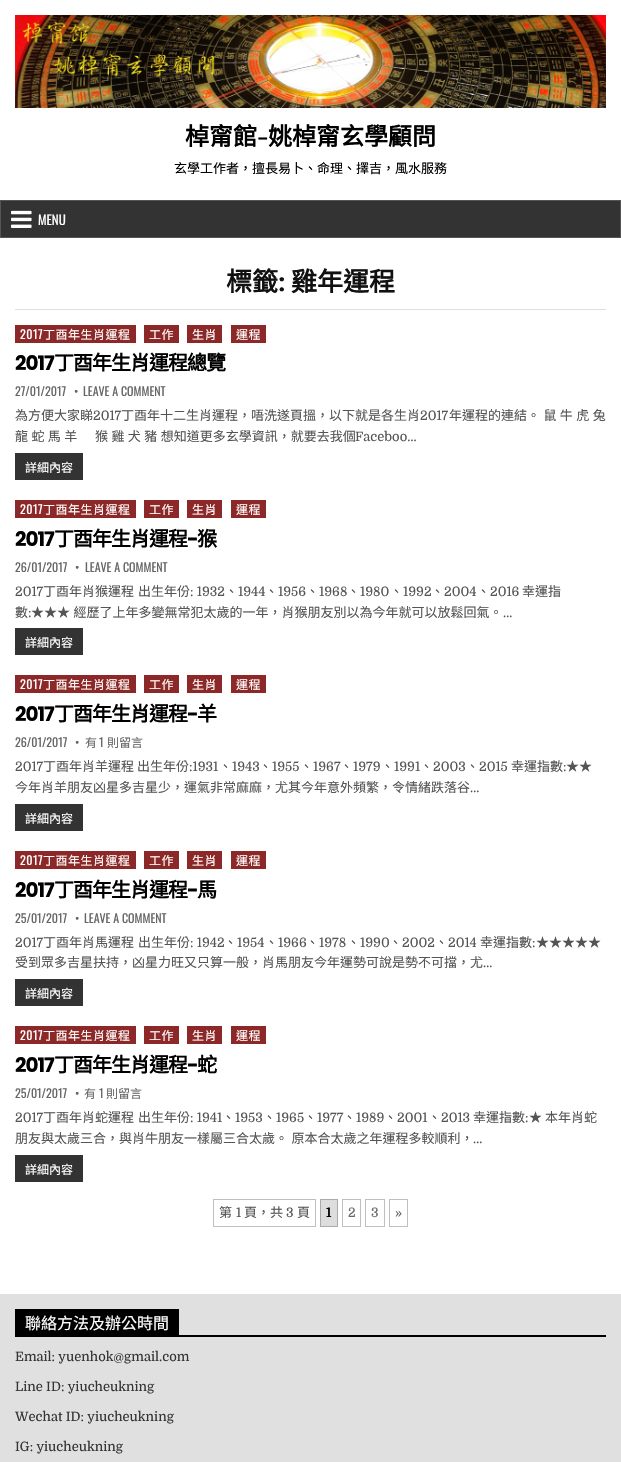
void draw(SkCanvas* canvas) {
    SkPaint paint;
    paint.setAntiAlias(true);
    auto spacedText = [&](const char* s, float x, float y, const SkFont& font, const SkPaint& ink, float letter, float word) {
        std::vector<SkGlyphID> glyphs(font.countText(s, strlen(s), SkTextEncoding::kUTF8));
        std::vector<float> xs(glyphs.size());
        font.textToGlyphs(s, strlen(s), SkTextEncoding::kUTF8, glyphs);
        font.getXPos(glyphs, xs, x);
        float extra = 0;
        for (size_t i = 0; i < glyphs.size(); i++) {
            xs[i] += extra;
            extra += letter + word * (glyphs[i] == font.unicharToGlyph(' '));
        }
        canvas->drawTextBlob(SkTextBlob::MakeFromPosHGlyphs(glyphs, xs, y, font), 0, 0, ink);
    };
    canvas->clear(0xFF333333);
    paint.setColor(0xFFFFFFFF);
    canvas->drawRect(SkRect::MakeXYWH(0, 0, 621, 200), paint);
    canvas->drawImageRect(SkImages::DeferredFromEncodedData(SkData::MakeFromFileName("img1.png")), SkRect::MakeXYWH(15, 15, 591, 93), SkSamplingOptions());
    SkFont font1(fontMgr->matchFamilyStyle("Noto Sans CJK TC", SkFontStyle::Bold()), 24);
    font1.setSubpixel(true);
    paint.setColor(0xFF000000);
    canvas->drawString("棹甯館", 185, 145, font1, paint);
    SkFont font2(fontMgr->matchFamilyStyle("Playfair Display", SkFontStyle::Bold()), 24);
    font2.setSubpixel(true);
    canvas->drawString("-", 257, 145, font2, paint);
    canvas->drawString("姚棹甯玄學顧問", 268, 145, font1, paint);
    SkFont font3(fontMgr->matchFamilyStyle("Noto Sans CJK TC", SkFontStyle::Normal()), 13);
    font3.setSubpixel(true);
    canvas->drawString("玄學工作者，擅長易卜、命理、擇吉，風水服務", 174, 173, font3, paint);
    paint.setStyle(SkPaint::kStroke_Style);
    paint.setStrokeWidth(1);
    paint.setColor(0xFF555555);
    canvas->drawRect(SkRect::MakeXYWH(0.5f, 200.5f, 620, 37), paint);
    canvas->drawImageRect(SkImages::DeferredFromEncodedData(SkData::MakeFromFileName("img2.png")), SkRect::MakeXYWH(11, 210, 21, 18), SkSamplingOptions());
    SkFont font4(fontMgr->matchFamilyStyle("Oswald", SkFontStyle::Normal()), 13);
    font4.setSubpixel(true);
    paint.setStyle(SkPaint::kFill_Style);
    paint.setColor(0xFFFFFFFF);
    canvas->drawString("MENU", 38, 225, font4, paint);
    canvas->drawRect(SkRect::MakeXYWH(0, 238, 621, 1056), paint);
    paint.setColor(0xFFDFDFDF);
    canvas->drawRect(SkRect::MakeXYWH(15, 309, 591, 1), paint);
    SkFont font5(fontMgr->matchFamilyStyle("Noto Sans CJK TC", SkFontStyle::Bold()), 26);
    font5.setSubpixel(true);
    paint.setColor(0xFF111111);
    canvas->drawString("標籤", 226, 291, font5, paint);
    SkFont font6(fontMgr->matchFamilyStyle("Playfair Display", SkFontStyle::Bold()), 26);
    font6.setSubpixel(true);
    canvas->drawString(":", 278, 291, font6, paint);
    canvas->drawString("雞年運程", 291, 291, font5, paint);
    paint.setColor(0xFF8C2828);
    canvas->drawRect(SkRect::MakeXYWH(15, 325, 121, 18), paint);
    SkFont font7(fontMgr->matchFamilyStyle("Oswald", SkFontStyle::Normal()), 12);
    font7.setSubpixel(true);
    paint.setColor(0xFFFFFFFF);
    spacedText("2017", 20, 339, font7, paint, 0.5f, 0);
    SkFont font8(fontMgr->matchFamilyStyle("Noto Sans CJK TC", SkFontStyle::Normal()), 12);
    font8.setSubpixel(true);
    spacedText("丁酉年生肖運程", 43, 339, font8, paint, 0.5f, 0);
    paint.setColor(0xFF8C2828);
    canvas->drawRect(SkRect::MakeXYWH(144, 325, 35, 18), paint);
    paint.setColor(0xFFFFFFFF);
    spacedText("工作", 149, 339, font8, paint, 0.5f, 0);
    paint.setColor(0xFF8C2828);
    canvas->drawRect(SkRect::MakeXYWH(187, 325, 35, 18), paint);
    paint.setColor(0xFFFFFFFF);
    spacedText("生肖", 192, 339, font8, paint, 0.5f, 0);
    paint.setColor(0xFF8C2828);
    canvas->drawRect(SkRect::MakeXYWH(231, 325, 35, 18), paint);
    paint.setColor(0xFFFFFFFF);
    spacedText("運程", 236, 339, font8, paint, 0.5f, 0);
    SkFont font9(fontMgr->matchFamilyStyle("Poppins", SkFontStyle::Bold()), 20);
    font9.setSubpixel(true);
    paint.setColor(0xFF000000);
    spacedText("2017", 15, 370, font9, paint, -1, 0);
    SkFont font10(fontMgr->matchFamilyStyle("Noto Sans CJK TC", SkFontStyle::Bold()), 20);
    font10.setSubpixel(true);
    spacedText("丁酉年生肖運程總覽", 54, 370, font10, paint, -1, 0);
    paint.setColor(0xFF666666);
    canvas->drawString("27/01/2017", 15, 396, font7, paint);
    canvas->drawString("•", 74, 396, font7, paint);
    canvas->drawString("LEAVE A COMMENT", 83, 396, font7, paint);
    paint.setColor(0xFF555555);
    canvas->drawString("為方便大家睇", 15, 420, font3, paint);
    SkFont font11(fontMgr->matchFamilyStyle("Domine", SkFontStyle::Normal()), 13);
    font11.setSubpixel(true);
    canvas->drawString("2017", 93, 420, font11, paint);
    canvas->drawString("丁酉年十二生肖運程，唔洗遂頁搵，以下就是各生肖", 121, 420, font3, paint);
    canvas->drawString("2017", 420, 420, font11, paint);
    spacedText("年運程的連結。 鼠 牛 虎 兔", 449, 420, font3, paint, 0, 0.5f);
    spacedText("龍 蛇 馬 羊", 15, 441, font3, paint, 0, 0.5f);
    spacedText("猴 雞 犬 豬 想知道更多玄學資訊，就要去我個", 95, 441, font3, paint, 0, 0.5f);
    canvas->drawString("Faceboo…", 355, 441, font11, paint);
    paint.setColor(0xFF333333);
    canvas->drawRect(SkRect::MakeXYWH(15, 453, 68, 27), paint);
    paint.setColor(0xFFFFFFFF);
    canvas->drawString("詳細內容", 25, 472, font8, paint);
    paint.setColor(0xFF8C2828);
    canvas->drawRect(SkRect::MakeXYWH(15, 500, 121, 18), paint);
    paint.setColor(0xFFFFFFFF);
    spacedText("2017", 20, 514, font7, paint, 0.5f, 0);
    spacedText("丁酉年生肖運程", 43, 514, font8, paint, 0.5f, 0);
    paint.setColor(0xFF8C2828);
    canvas->drawRect(SkRect::MakeXYWH(144, 500, 35, 18), paint);
    paint.setColor(0xFFFFFFFF);
    spacedText("工作", 149, 514, font8, paint, 0.5f, 0);
    paint.setColor(0xFF8C2828);
    canvas->drawRect(SkRect::MakeXYWH(187, 500, 35, 18), paint);
    paint.setColor(0xFFFFFFFF);
    spacedText("生肖", 192, 514, font8, paint, 0.5f, 0);
    paint.setColor(0xFF8C2828);
    canvas->drawRect(SkRect::MakeXYWH(231, 500, 35, 18), paint);
    paint.setColor(0xFFFFFFFF);
    spacedText("運程", 236, 514, font8, paint, 0.5f, 0);
    paint.setColor(0xFF000000);
    spacedText("2017", 15, 546, font9, paint, -1, 0);
    spacedText("丁酉年生肖運程", 54, 546, font10, paint, -1, 0);
    spacedText("-", 187, 546, font9, paint, -1, 0);
    spacedText("猴", 197, 546, font10, paint, -1, 0);
    paint.setColor(0xFF666666);
    canvas->drawString("26/01/2017", 15, 572, font7, paint);
    canvas->drawString("•", 75, 572, font7, paint);
    canvas->drawString("LEAVE A COMMENT", 85, 572, font7, paint);
    paint.setColor(0xFF555555);
    canvas->drawString("2017", 15, 596, font11, paint);
    canvas->drawString("丁酉年肖猴運程", 43, 596, font3, paint);
    canvas->drawString("出生年份", 138, 596, font3, paint);
    canvas->drawString(": 1932", 190, 596, font11, paint);
    canvas->drawString("、", 225, 596, font3, paint);
    canvas->drawString("1944", 238, 596, font11, paint);
    canvas->drawString("、", 265, 596, font3, paint);
    canvas->drawString("1956", 278, 596, font11, paint);
    canvas->drawString("、", 306, 596, font3, paint);
    canvas->drawString("1968", 319, 596, font11, paint);
    canvas->drawString("、", 347, 596, font3, paint);
    canvas->drawString("1980", 360, 596, font11, paint);
    canvas->drawString("、", 390, 596, font3, paint);
    canvas->drawString("1992", 403, 596, font11, paint);
    canvas->drawString("、", 431, 596, font3, paint);
    canvas->drawString("2004", 444, 596, font11, paint);
    canvas->drawString("、", 477, 596, font3, paint);
    canvas->drawString("2016", 490, 596, font11, paint);
    canvas->drawString("幸運指", 522, 596, font3, paint);
    canvas->drawString("數", 15, 617, font3, paint);
    canvas->drawString(":", 28, 617, font11, paint);
    spacedText("★★★ 經歷了上年多變無常犯太歲的一年，肖猴朋友別以為今年就可以放鬆回氣。", 31, 617, font3, paint, 0, 0.5f);
    canvas->drawString("…", 503, 617, font11, paint);
    paint.setColor(0xFF333333);
    canvas->drawRect(SkRect::MakeXYWH(15, 628, 68, 27), paint);
    paint.setColor(0xFFFFFFFF);
    canvas->drawString("詳細內容", 25, 647, font8, paint);
    paint.setColor(0xFF8C2828);
    canvas->drawRect(SkRect::MakeXYWH(15, 675, 121, 18), paint);
    paint.setColor(0xFFFFFFFF);
    spacedText("2017", 20, 689, font7, paint, 0.5f, 0);
    spacedText("丁酉年生肖運程", 43, 689, font8, paint, 0.5f, 0);
    paint.setColor(0xFF8C2828);
    canvas->drawRect(SkRect::MakeXYWH(144, 675, 35, 18), paint);
    paint.setColor(0xFFFFFFFF);
    spacedText("工作", 149, 689, font8, paint, 0.5f, 0);
    paint.setColor(0xFF8C2828);
    canvas->drawRect(SkRect::MakeXYWH(187, 675, 35, 18), paint);
    paint.setColor(0xFFFFFFFF);
    spacedText("生肖", 192, 689, font8, paint, 0.5f, 0);
    paint.setColor(0xFF8C2828);
    canvas->drawRect(SkRect::MakeXYWH(231, 675, 35, 18), paint);
    paint.setColor(0xFFFFFFFF);
    spacedText("運程", 236, 689, font8, paint, 0.5f, 0);
    paint.setColor(0xFF000000);
    spacedText("2017", 15, 721, font9, paint, -1, 0);
    spacedText("丁酉年生肖運程", 54, 721, font10, paint, -1, 0);
    spacedText("-", 187, 721, font9, paint, -1, 0);
    spacedText("羊", 197, 721, font10, paint, -1, 0);
    paint.setColor(0xFF666666);
    canvas->drawString("26/01/2017", 15, 747, font7, paint);
    canvas->drawString("•", 75, 747, font7, paint);
    canvas->drawString("有", 85, 747, font8, paint);
    canvas->drawString("1", 99, 747, font7, paint);
    canvas->drawString("則留言", 107, 747, font8, paint);
    paint.setColor(0xFF555555);
    canvas->drawString("2017", 15, 771, font11, paint);
    canvas->drawString("丁酉年肖羊運程 出生年份", 43, 771, font3, paint);
    canvas->drawString(":1931", 189, 771, font11, paint);
    canvas->drawString("、", 219, 771, font3, paint);
    canvas->drawString("1943", 232, 771, font11, paint);
    canvas->drawString("、", 259, 771, font3, paint);
    canvas->drawString("1955", 272, 771, font11, paint);
    canvas->drawString("、", 300, 771, font3, paint);
    canvas->drawString("1967", 313, 771, font11, paint);
    canvas->drawString("、", 340, 771, font3, paint);
    canvas->drawString("1979", 353, 771, font11, paint);
    canvas->drawString("、", 381, 771, font3, paint);
    canvas->drawString("1991", 394, 771, font11, paint);
    canvas->drawString("、", 420, 771, font3, paint);
    canvas->drawString("2003", 433, 771, font11, paint);
    canvas->drawString("、", 466, 771, font3, paint);
    canvas->drawString("2015", 479, 771, font11, paint);
    canvas->drawString("幸運指數", 511, 771, font3, paint);
    canvas->drawString(":", 563, 771, font11, paint);
    canvas->drawString("★★", 566, 771, font3, paint);
    canvas->drawString("今年肖羊朋友凶星多吉星少，運氣非常麻麻，尤其今年意外頻繁，令情緒跌落谷", 15, 792, font3, paint);
    canvas->drawString("…", 470, 792, font11, paint);
    paint.setColor(0xFF333333);
    canvas->drawRect(SkRect::MakeXYWH(15, 804, 68, 27), paint);
    paint.setColor(0xFFFFFFFF);
    canvas->drawString("詳細內容", 25, 823, font8, paint);
    paint.setColor(0xFF8C2828);
    canvas->drawRect(SkRect::MakeXYWH(15, 851, 121, 18), paint);
    paint.setColor(0xFFFFFFFF);
    spacedText("2017", 20, 865, font7, paint, 0.5f, 0);
    spacedText("丁酉年生肖運程", 43, 865, font8, paint, 0.5f, 0);
    paint.setColor(0xFF8C2828);
    canvas->drawRect(SkRect::MakeXYWH(144, 851, 35, 18), paint);
    paint.setColor(0xFFFFFFFF);
    spacedText("工作", 149, 865, font8, paint, 0.5f, 0);
    paint.setColor(0xFF8C2828);
    canvas->drawRect(SkRect::MakeXYWH(187, 851, 35, 18), paint);
    paint.setColor(0xFFFFFFFF);
    spacedText("生肖", 192, 865, font8, paint, 0.5f, 0);
    paint.setColor(0xFF8C2828);
    canvas->drawRect(SkRect::MakeXYWH(231, 851, 35, 18), paint);
    paint.setColor(0xFFFFFFFF);
    spacedText("運程", 236, 865, font8, paint, 0.5f, 0);
    paint.setColor(0xFF000000);
    spacedText("2017", 15, 897, font9, paint, -1, 0);
    spacedText("丁酉年生肖運程", 54, 897, font10, paint, -1, 0);
    spacedText("-", 187, 897, font9, paint, -1, 0);
    spacedText("馬", 197, 897, font10, paint, -1, 0);
    paint.setColor(0xFF666666);
    canvas->drawString("25/01/2017", 15, 923, font7, paint);
    canvas->drawString("•", 75, 923, font7, paint);
    canvas->drawString("LEAVE A COMMENT", 84, 923, font7, paint);
    paint.setColor(0xFF555555);
    canvas->drawString("2017", 15, 947, font11, paint);
    canvas->drawString("丁酉年肖馬運程", 43, 947, font3, paint);
    canvas->drawString("出生年份", 138, 947, font3, paint);
    canvas->drawString(": 1942", 190, 947, font11, paint);
    canvas->drawString("、", 224, 947, font3, paint);
    canvas->drawString("1954", 237, 947, font11, paint);
    canvas->drawString("、", 265, 947, font3, paint);
    canvas->drawString("1966", 278, 947, font11, paint);
    canvas->drawString("、", 306, 947, font3, paint);
    canvas->drawString("1978", 319, 947, font11, paint);
    canvas->drawString("、", 347, 947, font3, paint);
    canvas->drawString("1990", 360, 947, font11, paint);
    canvas->drawString("、", 389, 947, font3, paint);
    canvas->drawString("2002", 402, 947, font11, paint);
    canvas->drawString("、", 435, 947, font3, paint);
    canvas->drawString("2014", 448, 947, font11, paint);
    canvas->drawString("幸運指數", 480, 947, font3, paint);
    canvas->drawString(":", 532, 947, font11, paint);
    canvas->drawString("★★★★★", 536, 947, font3, paint);
    canvas->drawString("受到眾多吉星扶持，凶星力旺又只算一般，肖馬朋友今年運勢可說是勢不可擋，尤", 15, 967, font3, paint);
    canvas->drawString("…", 483, 967, font11, paint);
    paint.setColor(0xFF333333);
    canvas->drawRect(SkRect::MakeXYWH(15, 979, 68, 27), paint);
    paint.setColor(0xFFFFFFFF);
    canvas->drawString("詳細內容", 25, 998, font8, paint);
    paint.setColor(0xFF8C2828);
    canvas->drawRect(SkRect::MakeXYWH(15, 1026, 121, 18), paint);
    paint.setColor(0xFFFFFFFF);
    spacedText("2017", 20, 1040, font7, paint, 0.5f, 0);
    spacedText("丁酉年生肖運程", 43, 1040, font8, paint, 0.5f, 0);
    paint.setColor(0xFF8C2828);
    canvas->drawRect(SkRect::MakeXYWH(144, 1026, 35, 18), paint);
    paint.setColor(0xFFFFFFFF);
    spacedText("工作", 149, 1040, font8, paint, 0.5f, 0);
    paint.setColor(0xFF8C2828);
    canvas->drawRect(SkRect::MakeXYWH(187, 1026, 35, 18), paint);
    paint.setColor(0xFFFFFFFF);
    spacedText("生肖", 192, 1040, font8, paint, 0.5f, 0);
    paint.setColor(0xFF8C2828);
    canvas->drawRect(SkRect::MakeXYWH(231, 1026, 35, 18), paint);
    paint.setColor(0xFFFFFFFF);
    spacedText("運程", 236, 1040, font8, paint, 0.5f, 0);
    paint.setColor(0xFF000000);
    spacedText("2017", 15, 1072, font9, paint, -1, 0);
    spacedText("丁酉年生肖運程", 54, 1072, font10, paint, -1, 0);
    spacedText("-", 187, 1072, font9, paint, -1, 0);
    spacedText("蛇", 197, 1072, font10, paint, -1, 0);
    paint.setColor(0xFF666666);
    canvas->drawString("25/01/2017", 15, 1098, font7, paint);
    canvas->drawString("•", 75, 1098, font7, paint);
    canvas->drawString("有", 84, 1098, font8, paint);
    canvas->drawString("1", 99, 1098, font7, paint);
    canvas->drawString("則留言", 106, 1098, font8, paint);
    paint.setColor(0xFF555555);
    canvas->drawString("2017", 15, 1122, font11, paint);
    canvas->drawString("丁酉年肖蛇運程", 43, 1122, font3, paint);
    canvas->drawString("出生年份", 138, 1122, font3, paint);
    canvas->drawString(": 1941", 190, 1122, font11, paint);
    canvas->drawString("、", 222, 1122, font3, paint);
    canvas->drawString("1953", 235, 1122, font11, paint);
    canvas->drawString("、", 263, 1122, font3, paint);
    canvas->drawString("1965", 276, 1122, font11, paint);
    canvas->drawString("、", 304, 1122, font3, paint);
    canvas->drawString("1977", 317, 1122, font11, paint);
    canvas->drawString("、", 343, 1122, font3, paint);
    canvas->drawString("1989", 356, 1122, font11, paint);
    canvas->drawString("、", 384, 1122, font3, paint);
    canvas->drawString("2001", 397, 1122, font11, paint);
    canvas->drawString("、", 428, 1122, font3, paint);
    canvas->drawString("2013", 441, 1122, font11, paint);
    canvas->drawString("幸運指數", 473, 1122, font3, paint);
    canvas->drawString(":", 525, 1122, font11, paint);
    canvas->drawString("★", 529, 1122, font3, paint);
    canvas->drawString("本年肖蛇", 545, 1122, font3, paint);
    spacedText("朋友與太歲三合，與肖牛朋友一樣屬三合太歲。 原本合太歲之年運程多較順利，", 15, 1143, font3, paint, 0, 0.5f);
    canvas->drawString("…", 473, 1143, font11, paint);
    paint.setColor(0xFF333333);
    canvas->drawRect(SkRect::MakeXYWH(15, 1155, 68, 27), paint);
    paint.setColor(0xFFFFFFFF);
    canvas->drawString("詳細內容", 25, 1174, font8, paint);
    paint.setStyle(SkPaint::kStroke_Style);
    paint.setColor(0xFFBFBFBF);
    canvas->drawRect(SkRect::MakeXYWH(213.5f, 1199.5f, 102, 27), paint);
    paint.setStyle(SkPaint::kFill_Style);
    paint.setColor(0xFF555555);
    canvas->drawString("第", 219, 1217, font3, paint);
    canvas->drawString("1", 236, 1217, font11, paint);
    canvas->drawString("頁，共", 244, 1217, font3, paint);
    canvas->drawString("3", 286, 1217, font11, paint);
    canvas->drawString("頁", 297, 1217, font3, paint);
    paint.setColor(0xFFDDDDDD);
    canvas->drawRect(SkRect::MakeXYWH(320.5f, 1199.5f, 17, 27), paint);
    paint.setStyle(SkPaint::kStroke_Style);
    paint.setColor(0xFFAAAAAA);
    canvas->drawRect(SkRect::MakeXYWH(320.5f, 1199.5f, 17, 27), paint);
    SkFont font12(fontMgr->matchFamilyStyle("Domine", SkFontStyle::Bold()), 13);
    font12.setSubpixel(true);
    paint.setStyle(SkPaint::kFill_Style);
    paint.setColor(0xFF000000);
    canvas->drawString("1", 326, 1217, font12, paint);
    paint.setStyle(SkPaint::kStroke_Style);
    paint.setColor(0xFFBFBFBF);
    canvas->drawRect(SkRect::MakeXYWH(342.5f, 1199.5f, 18, 27), paint);
    paint.setStyle(SkPaint::kFill_Style);
    paint.setColor(0xFF666666);
    canvas->drawString("2", 348, 1217, font11, paint);
    paint.setStyle(SkPaint::kStroke_Style);
    paint.setColor(0xFFBFBFBF);
    canvas->drawRect(SkRect::MakeXYWH(365.5f, 1199.5f, 19, 27), paint);
    paint.setStyle(SkPaint::kFill_Style);
    paint.setColor(0xFF666666);
    canvas->drawString("3", 371, 1217, font11, paint);
    paint.setStyle(SkPaint::kStroke_Style);
    paint.setColor(0xFFBFBFBF);
    canvas->drawRect(SkRect::MakeXYWH(389.5f, 1199.5f, 18, 27), paint);
    paint.setStyle(SkPaint::kFill_Style);
    paint.setColor(0xFF666666);
    canvas->drawString("»", 395, 1217, font11, paint);
    paint.setColor(0xFFE0E0E0);
    canvas->drawRect(SkRect::MakeXYWH(0, 1294, 621, 168), paint);
    paint.setColor(0xFF000000);
    canvas->drawRect(SkRect::MakeXYWH(15, 1335, 591, 2), paint);
    canvas->drawRect(SkRect::MakeXYWH(15, 1309, 164, 26), paint);
    SkFont font13(fontMgr->matchFamilyStyle("Noto Sans CJK TC", SkFontStyle::Normal()), 16);
    font13.setSubpixel(true);
    paint.setColor(0xFFFFFFFF);
    canvas->drawString("聯絡方法及辦公時間", 25, 1329, font13, paint);
    paint.setColor(0xFF333333);
    canvas->drawString("Email: yuenhok@gmail.com", 15, 1361, font11, paint);
    canvas->drawString("Line ID: yiucheukning", 15, 1391, font11, paint);
    canvas->drawString("Wechat ID: yiucheukning", 15, 1421, font11, paint);
    canvas->drawString("IG: yiucheukning", 15, 1451, font11, paint);
}
